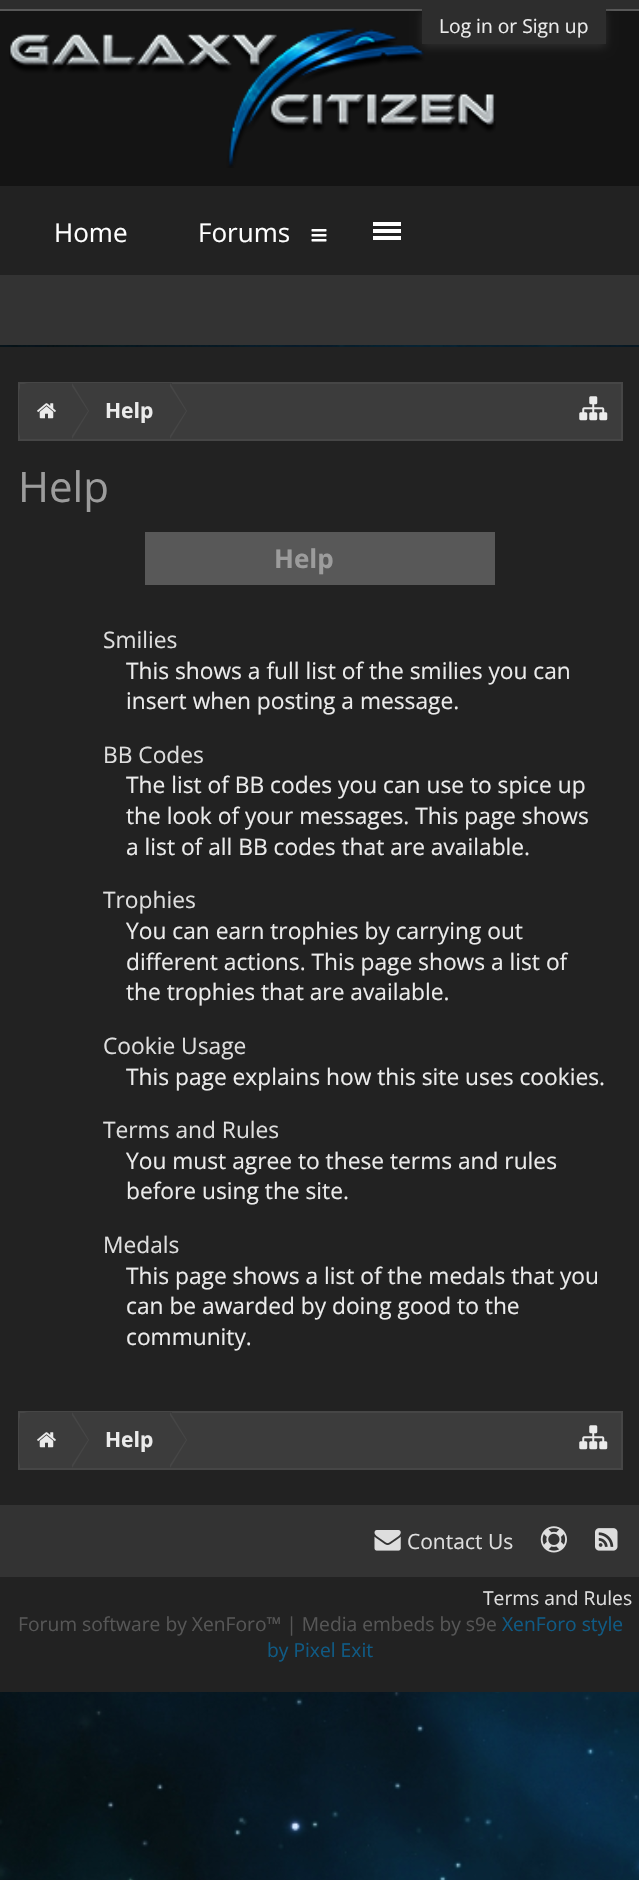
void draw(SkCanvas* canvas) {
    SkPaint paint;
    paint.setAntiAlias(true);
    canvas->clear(0xFFFFFFFF);
    canvas->drawImageRect(SkImages::DeferredFromEncodedData(SkData::MakeFromFileName("img1.png")), SkRect::MakeXYWH(0, 345, 639, 1535), SkSamplingOptions());
    paint.setColor(0xFF2D2D2D);
    canvas->drawRect(SkRect::MakeXYWH(0, 0, 639, 9), paint);
    paint.setColor(0xFF585858);
    canvas->drawRect(SkRect::MakeXYWH(0, 9, 639, 2), paint);
    paint.setColor(0xFF141414);
    canvas->drawRect(SkRect::MakeXYWH(0, 11, 639, 175), paint);
    canvas->drawImageRect(SkImages::DeferredFromEncodedData(SkData::MakeFromFileName("img2.png")), SkRect::MakeXYWH(9, 27, 487, 141), SkSamplingOptions());
    paint.setColor(0xFF2D2D2D);
    paint.setMaskFilter(SkMaskFilter::MakeBlur(kNormal_SkBlurStyle, 4.5f));
    canvas->drawRect(SkRect::MakeXYWH(422, 12, 184, 35), paint);
    paint.setMaskFilter(nullptr);
    canvas->drawRect(SkRect::MakeXYWH(422, 9, 184, 35), paint);
    SkFont font1(fontMgr->matchFamilyStyle("Open Sans", SkFontStyle::Normal()), 19.25f);
    font1.setSubpixel(true);
    paint.setColor(0xFFEBEBEB);
    canvas->drawString("Log in or Sign up", 439, 33, font1, paint);
    paint.setColor(0xFF222222);
    canvas->drawRect(SkRect::MakeXYWH(0, 186, 639, 89), paint);
    SkFont font2(fontMgr->matchFamilyStyle("Open Sans", SkFontStyle::Normal()), 26);
    font2.setSubpixel(true);
    paint.setColor(0xFFFFFFFF);
    canvas->drawString("Home", 54, 242, font2, paint);
    canvas->drawString("Forums", 198, 242, font2, paint);
    canvas->drawImageRect(SkImages::DeferredFromEncodedData(SkData::MakeFromFileName("img3.png")), SkRect::MakeXYWH(311, 229, 16, 13), SkSamplingOptions());
    canvas->drawRect(SkRect::MakeXYWH(373, 222, 28, 4), paint);
    canvas->drawRect(SkRect::MakeXYWH(373, 229, 28, 4), paint);
    canvas->drawRect(SkRect::MakeXYWH(373, 236, 28, 4), paint);
    paint.setColor(0xFF333333);
    canvas->drawRect(SkRect::MakeXYWH(0, 275, 639, 70), paint);
    paint.setColor(0xFF222222);
    canvas->drawRect(SkRect::MakeXYWH(0, 347, 639, 1158), paint);
    paint.setColor(0xFF3C3C3C);
    canvas->drawRect(SkRect::MakeXYWH(19, 383, 603, 57), paint);
    paint.setStyle(SkPaint::kStroke_Style);
    paint.setStrokeWidth(2);
    paint.setColor(0xFF464646);
    canvas->drawRect(SkRect::MakeXYWH(19, 383, 603, 57), paint);
    canvas->save();
    canvas->clipRect(SkRect::MakeXYWH(19, 383, 602, 56));
    paint.setStyle(SkPaint::kFill_Style);
    paint.setColor(0xFF3C3C3C);
    canvas->drawPath(SkPathBuilder().moveTo(28, 383).lineTo(74, 383).lineTo(74, 441).lineTo(28, 441).cubicTo(23, 441, 19, 437, 19, 432).lineTo(19, 392).cubicTo(19, 387, 23, 383, 28, 383).close().detach(), paint);
    canvas->restore();
    canvas->drawImageRect(SkImages::DeferredFromEncodedData(SkData::MakeFromFileName("img4.png")), SkRect::MakeXYWH(37, 403, 19, 16), SkSamplingOptions());
    canvas->drawRect(SkRect::MakeXYWH(74, 383, 98, 1), paint);
    paint.setColor(0xFF464646);
    canvas->drawPath(SkPathBuilder().moveTo(72, 439).lineTo(72, 383).lineTo(89, 411).close().detach(), paint);
    paint.setColor(0xFF3C3C3C);
    canvas->drawPath(SkPathBuilder().moveTo(70, 439).lineTo(70, 383).lineTo(88, 411).close().detach(), paint);
    SkFont font3(fontMgr->matchFamilyStyle("Open Sans", SkFontStyle::Bold()), 21);
    font3.setSubpixel(true);
    paint.setColor(0xFFEBEBEB);
    canvas->drawString("Help", 105, 418, font3, paint);
    paint.setColor(0xFF464646);
    canvas->drawPath(SkPathBuilder().moveTo(170, 439).lineTo(170, 383).lineTo(187, 411).close().detach(), paint);
    paint.setColor(0xFF3C3C3C);
    canvas->drawPath(SkPathBuilder().moveTo(168, 439).lineTo(168, 383).lineTo(186, 411).close().detach(), paint);
    canvas->drawImageRect(SkImages::DeferredFromEncodedData(SkData::MakeFromFileName("img5.png")), SkRect::MakeXYWH(579, 396, 29, 25), SkSamplingOptions());
    SkFont font4(fontMgr->matchFamilyStyle("Open Sans", SkFontStyle::Normal()), 42);
    font4.setSubpixel(true);
    paint.setColor(0xFF9C9C9C);
    canvas->drawString("Help", 18, 502, font4, paint);
    paint.setColor(0xFF585858);
    canvas->drawRect(SkRect::MakeXYWH(145, 532, 350, 53), paint);
    SkFont font5(fontMgr->matchFamilyStyle("Open Sans", SkFontStyle::Bold()), 26);
    font5.setSubpixel(true);
    paint.setColor(0xFF9C9C9C);
    canvas->drawString("Help", 274, 568, font5, paint);
    SkFont font6(fontMgr->matchFamilyStyle("Open Sans", SkFontStyle::Normal()), 22.75f);
    font6.setSubpixel(true);
    paint.setColor(0xFFDEDEDE);
    canvas->drawString("Smilies", 103, 648, font6, paint);
    paint.setColor(0xFFEBEBEB);
    canvas->drawString("This shows a full list of the smilies you can", 126, 679, font6, paint);
    canvas->drawString("insert when posting a message.", 126, 709, font6, paint);
    paint.setColor(0xFFDEDEDE);
    canvas->drawString("BB Codes", 103, 763, font6, paint);
    paint.setColor(0xFFEBEBEB);
    canvas->drawString("The list of BB codes you can use to spice up", 126, 793, font6, paint);
    canvas->drawString("the look of your messages. This page shows", 126, 824, font6, paint);
    canvas->drawString("a list of all BB codes that are available.", 126, 855, font6, paint);
    paint.setColor(0xFFDEDEDE);
    canvas->drawString("Trophies", 103, 908, font6, paint);
    paint.setColor(0xFFEBEBEB);
    canvas->drawString("You can earn trophies by carrying out", 126, 939, font6, paint);
    canvas->drawString("different actions. This page shows a list of", 126, 970, font6, paint);
    canvas->drawString("the trophies that are available.", 126, 1000, font6, paint);
    paint.setColor(0xFFDEDEDE);
    canvas->drawString("Cookie Usage", 103, 1054, font6, paint);
    paint.setColor(0xFFEBEBEB);
    canvas->drawString("This page explains how this site uses cookies.", 126, 1085, font6, paint);
    paint.setColor(0xFFDEDEDE);
    canvas->drawString("Terms and Rules", 103, 1138, font6, paint);
    paint.setColor(0xFFEBEBEB);
    canvas->drawString("You must agree to these terms and rules", 126, 1169, font6, paint);
    canvas->drawString("before using the site.", 126, 1199, font6, paint);
    paint.setColor(0xFFDEDEDE);
    canvas->drawString("Medals", 103, 1253, font6, paint);
    paint.setColor(0xFFEBEBEB);
    canvas->drawString("This page shows a list of the medals that you", 126, 1284, font6, paint);
    canvas->drawString("can be awarded by doing good to the", 126, 1314, font6, paint);
    canvas->drawString("community.", 126, 1345, font6, paint);
    paint.setColor(0xFF3C3C3C);
    canvas->drawRect(SkRect::MakeXYWH(19, 1412, 603, 57), paint);
    paint.setStyle(SkPaint::kStroke_Style);
    paint.setColor(0xFF464646);
    canvas->drawRect(SkRect::MakeXYWH(19, 1412, 603, 57), paint);
    canvas->save();
    canvas->clipRect(SkRect::MakeXYWH(19, 1412, 602, 56));
    paint.setStyle(SkPaint::kFill_Style);
    paint.setColor(0xFF3C3C3C);
    canvas->drawPath(SkPathBuilder().moveTo(28, 1412).lineTo(74, 1412).lineTo(74, 1470).lineTo(28, 1470).cubicTo(23, 1470, 19, 1466, 19, 1461).lineTo(19, 1421).cubicTo(19, 1416, 23, 1412, 28, 1412).close().detach(), paint);
    canvas->restore();
    canvas->drawImageRect(SkImages::DeferredFromEncodedData(SkData::MakeFromFileName("img4.png")), SkRect::MakeXYWH(37, 1432, 19, 16), SkSamplingOptions());
    canvas->drawRect(SkRect::MakeXYWH(74, 1412, 98, 1), paint);
    paint.setColor(0xFF464646);
    canvas->drawPath(SkPathBuilder().moveTo(72, 1468).lineTo(72, 1412).lineTo(89, 1440).close().detach(), paint);
    paint.setColor(0xFF3C3C3C);
    canvas->drawPath(SkPathBuilder().moveTo(70, 1468).lineTo(70, 1412).lineTo(88, 1440).close().detach(), paint);
    paint.setColor(0xFFEBEBEB);
    canvas->drawString("Help", 105, 1447, font3, paint);
    paint.setColor(0xFF464646);
    canvas->drawPath(SkPathBuilder().moveTo(170, 1468).lineTo(170, 1412).lineTo(187, 1440).close().detach(), paint);
    paint.setColor(0xFF3C3C3C);
    canvas->drawPath(SkPathBuilder().moveTo(168, 1468).lineTo(168, 1412).lineTo(186, 1440).close().detach(), paint);
    canvas->drawImageRect(SkImages::DeferredFromEncodedData(SkData::MakeFromFileName("img5.png")), SkRect::MakeXYWH(579, 1425, 29, 25), SkSamplingOptions());
    paint.setColor(0xFF333333);
    canvas->drawRect(SkRect::MakeXYWH(0, 1505, 639, 72), paint);
    canvas->drawImageRect(SkImages::DeferredFromEncodedData(SkData::MakeFromFileName("img6.png")), SkRect::MakeXYWH(374, 1530, 27, 21), SkSamplingOptions());
    SkFont font7(fontMgr->matchFamilyStyle("Open Sans", SkFontStyle::Normal()), 21);
    font7.setSubpixel(true);
    paint.setColor(0xFFDEDEDE);
    canvas->drawString("Contact Us", 407, 1549, font7, paint);
    canvas->drawImageRect(SkImages::DeferredFromEncodedData(SkData::MakeFromFileName("img7.png")), SkRect::MakeXYWH(540, 1526, 27, 27), SkSamplingOptions());
    canvas->drawImageRect(SkImages::DeferredFromEncodedData(SkData::MakeFromFileName("img8.png")), SkRect::MakeXYWH(595, 1528, 23, 23), SkSamplingOptions());
    paint.setColor(0xFF222222);
    canvas->drawRect(SkRect::MakeXYWH(0, 1577, 639, 115), paint);
    paint.setColor(0xFFDEDEDE);
    canvas->drawString("Terms and Rules", 483, 1605, font1, paint);
    paint.setColor(0xFF565656);
    canvas->drawString("Forum software by XenForo™ | Media embeds by s9e", 18, 1631, font1, paint);
    paint.setColor(0xFF0F5A84);
    canvas->drawString("XenForo style", 502, 1631, font1, paint);
    canvas->drawString("by Pixel Exit", 267, 1657, font1, paint);
}
